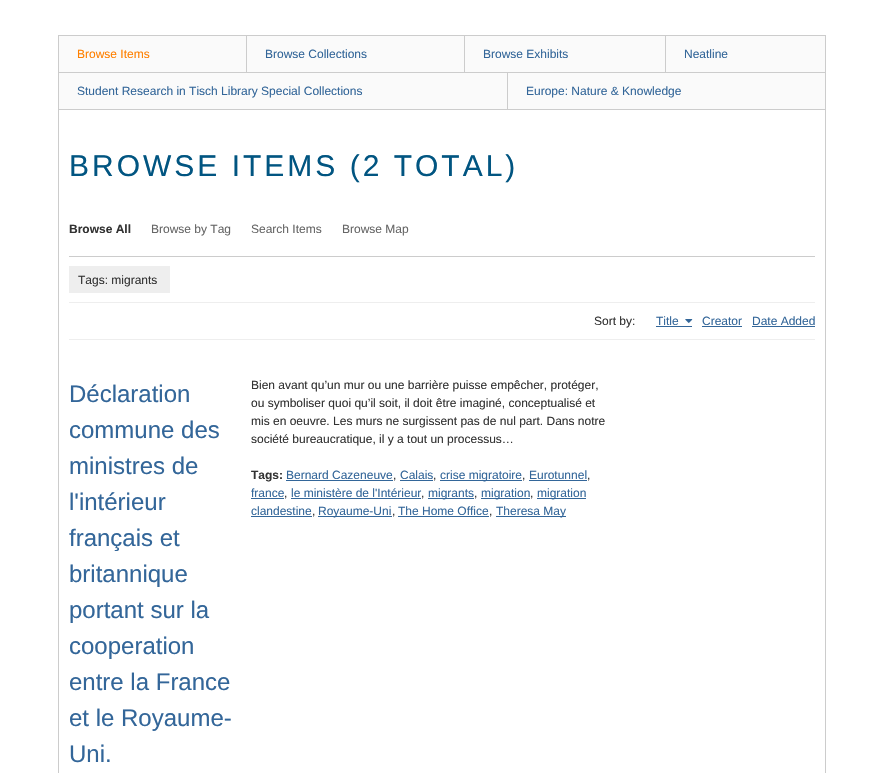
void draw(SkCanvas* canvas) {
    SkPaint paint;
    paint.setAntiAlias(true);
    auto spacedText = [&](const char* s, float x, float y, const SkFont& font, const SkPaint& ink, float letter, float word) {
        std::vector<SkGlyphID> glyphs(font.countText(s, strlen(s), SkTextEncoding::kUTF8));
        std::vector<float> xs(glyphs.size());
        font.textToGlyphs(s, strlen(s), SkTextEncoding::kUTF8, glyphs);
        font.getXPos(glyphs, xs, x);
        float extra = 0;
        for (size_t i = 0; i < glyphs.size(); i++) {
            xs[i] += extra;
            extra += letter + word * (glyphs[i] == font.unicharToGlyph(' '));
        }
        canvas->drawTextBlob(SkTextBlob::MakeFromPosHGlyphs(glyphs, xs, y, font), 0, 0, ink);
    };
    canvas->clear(0xFFFFFFFF);
    paint.setColor(0xFFCCCCCC);
    canvas->drawRect(SkRect::MakeXYWH(825, 35, 1, 74), paint);
    paint.setColor(0xFFFAFAFA);
    canvas->drawRect(SkRect::MakeXYWH(59, 36, 187, 36), paint);
    SkFont font1(fontMgr->matchFamilyStyle("Liberation Sans", SkFontStyle::Normal()), 12);
    font1.setSubpixel(true);
    paint.setColor(0xFFFF8000);
    canvas->drawString("Browse Items", 77, 58, font1, paint);
    paint.setColor(0xFFFAFAFA);
    canvas->drawRect(SkRect::MakeXYWH(247, 36, 217, 36), paint);
    paint.setColor(0xFFCCCCCC);
    canvas->drawRect(SkRect::MakeXYWH(58, 35, 767, 1), paint);
    canvas->drawRect(SkRect::MakeXYWH(246, 35, 1, 37), paint);
    paint.setColor(0xFF336699);
    canvas->drawString("Browse Collections", 265, 58, font1, paint);
    paint.setColor(0xFFFAFAFA);
    canvas->drawRect(SkRect::MakeXYWH(465, 36, 200, 36), paint);
    paint.setColor(0xFFCCCCCC);
    canvas->drawRect(SkRect::MakeXYWH(464, 35, 1, 37), paint);
    paint.setColor(0xFF336699);
    canvas->drawString("Browse Exhibits", 483, 58, font1, paint);
    paint.setColor(0xFFFAFAFA);
    canvas->drawRect(SkRect::MakeXYWH(666, 36, 159, 36), paint);
    paint.setColor(0xFFCCCCCC);
    canvas->drawRect(SkRect::MakeXYWH(665, 35, 1, 37), paint);
    paint.setColor(0xFF336699);
    canvas->drawString("Neatline", 684, 58, font1, paint);
    paint.setColor(0xFFFAFAFA);
    canvas->drawRect(SkRect::MakeXYWH(59, 73, 448, 36), paint);
    paint.setColor(0xFFCCCCCC);
    canvas->drawRect(SkRect::MakeXYWH(58, 72, 767, 1), paint);
    canvas->drawRect(SkRect::MakeXYWH(58, 35, 1, 74), paint);
    paint.setColor(0xFF336699);
    canvas->drawString("Student Research in Tisch Library Special Collections", 77, 95, font1, paint);
    paint.setColor(0xFFFAFAFA);
    canvas->drawRect(SkRect::MakeXYWH(508, 73, 317, 36), paint);
    paint.setColor(0xFFCCCCCC);
    canvas->drawRect(SkRect::MakeXYWH(507, 72, 1, 37), paint);
    paint.setColor(0xFF336699);
    canvas->drawString("Europe: Nature & Knowledge", 526, 95, font1, paint);
    paint.setStyle(SkPaint::kStroke_Style);
    paint.setStrokeWidth(1);
    paint.setColor(0xFFCCCCCC);
    canvas->drawRect(SkRect::MakeXYWH(58.5f, 109.5f, 767, 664), paint);
    SkFont font2(fontMgr->matchFamilyStyle("Liberation Sans", SkFontStyle::Normal()), 30);
    font2.setSubpixel(true);
    paint.setStyle(SkPaint::kFill_Style);
    paint.setColor(0xFF015581);
    spacedText("BROWSE ITEMS (2 TOTAL)", 69, 176, font2, paint, 3, 0);
    paint.setColor(0xFFCCCCCC);
    canvas->drawRect(SkRect::MakeXYWH(69, 256, 746, 1), paint);
    SkFont font3(fontMgr->matchFamilyStyle("Liberation Sans", SkFontStyle::Bold()), 12);
    font3.setSubpixel(true);
    paint.setColor(0xFF333333);
    canvas->drawString("Browse All", 69, 233, font3, paint);
    paint.setColor(0xFF666666);
    canvas->drawString("Browse by Tag", 151, 233, font1, paint);
    canvas->drawString("Search Items", 251, 233, font1, paint);
    canvas->drawString("Browse Map", 342, 233, font1, paint);
    paint.setColor(0xFFEEEEEE);
    canvas->drawRect(SkRect::MakeXYWH(69, 302, 746, 1), paint);
    canvas->drawRect(SkRect::MakeXYWH(69, 266, 101, 27), paint);
    paint.setColor(0xFF333333);
    canvas->drawString("Tags: migrants", 78, 284, font1, paint);
    canvas->drawString("Sort by:", 594, 325, font1, paint);
    paint.setColor(0xFF336699);
    canvas->drawString("Title", 656, 325, font1, paint);
    canvas->drawRect(SkRect::MakeXYWH(656, 326, 36, 1), paint);
    canvas->drawImageRect(SkImages::DeferredFromEncodedData(SkData::MakeFromFileName("img1.png")), SkRect::MakeXYWH(685, 319, 8, 4), SkSamplingOptions());
    canvas->drawString("Creator", 702, 325, font1, paint);
    canvas->drawRect(SkRect::MakeXYWH(702, 326, 40, 1), paint);
    canvas->drawString("Date Added", 752, 325, font1, paint);
    canvas->drawRect(SkRect::MakeXYWH(752, 326, 63, 1), paint);
    paint.setColor(0xFFEEEEEE);
    canvas->drawRect(SkRect::MakeXYWH(69, 339, 746, 1), paint);
    SkFont font4(fontMgr->matchFamilyStyle("Liberation Sans", SkFontStyle::Normal()), 24);
    font4.setSubpixel(true);
    paint.setColor(0xFF336699);
    canvas->drawString("Déclaration", 69, 402, font4, paint);
    canvas->drawString("commune des", 69, 438, font4, paint);
    canvas->drawString("ministres de", 69, 474, font4, paint);
    canvas->drawString("l'intérieur", 69, 510, font4, paint);
    canvas->drawString("français et", 69, 546, font4, paint);
    canvas->drawString("britannique", 69, 582, font4, paint);
    canvas->drawString("portant sur la", 69, 618, font4, paint);
    canvas->drawString("cooperation", 69, 654, font4, paint);
    canvas->drawString("entre la France", 69, 690, font4, paint);
    canvas->drawString("et le Royaume-", 69, 726, font4, paint);
    canvas->drawString("Uni.", 69, 762, font4, paint);
    paint.setColor(0xFF333333);
    canvas->drawString("Bien avant qu’un mur ou une barrière puisse empêcher, protéger,", 251, 389, font1, paint);
    canvas->drawString("ou symboliser quoi qu’il soit, il doit être imaginé, conceptualisé et", 251, 407, font1, paint);
    canvas->drawString("mis en oeuvre. Les murs ne surgissent pas de nul part. Dans notre", 251, 425, font1, paint);
    canvas->drawString("société bureaucratique, il y a tout un processus…", 251, 443, font1, paint);
    canvas->drawString("Tags:", 251, 479, font3, paint);
    paint.setColor(0xFF336699);
    canvas->drawString("Bernard Cazeneuve", 286, 479, font1, paint);
    canvas->drawRect(SkRect::MakeXYWH(286, 480, 107, 1), paint);
    paint.setColor(0xFF333333);
    canvas->drawString(",", 393, 479, font1, paint);
    paint.setColor(0xFF336699);
    canvas->drawString("Calais", 400, 479, font1, paint);
    canvas->drawRect(SkRect::MakeXYWH(400, 480, 33, 1), paint);
    paint.setColor(0xFF333333);
    canvas->drawString(",", 433, 479, font1, paint);
    paint.setColor(0xFF336699);
    canvas->drawRect(SkRect::MakeXYWH(440, 480, 82, 1), paint);
    canvas->drawString("crise migratoire", 440, 479, font1, paint);
    paint.setColor(0xFF333333);
    canvas->drawString(",", 522, 479, font1, paint);
    paint.setColor(0xFF336699);
    canvas->drawString("Eurotunnel", 529, 479, font1, paint);
    canvas->drawRect(SkRect::MakeXYWH(529, 480, 58, 1), paint);
    paint.setColor(0xFF333333);
    canvas->drawString(",", 587, 479, font1, paint);
    paint.setColor(0xFF336699);
    canvas->drawString("france", 251, 497, font1, paint);
    canvas->drawRect(SkRect::MakeXYWH(251, 498, 33, 1), paint);
    paint.setColor(0xFF333333);
    canvas->drawString(",", 284, 497, font1, paint);
    paint.setColor(0xFF336699);
    canvas->drawString("le ministère de l'Intérieur", 291, 497, font1, paint);
    canvas->drawRect(SkRect::MakeXYWH(291, 498, 130, 1), paint);
    paint.setColor(0xFF333333);
    canvas->drawString(",", 421, 497, font1, paint);
    paint.setColor(0xFF336699);
    canvas->drawRect(SkRect::MakeXYWH(428, 498, 46, 1), paint);
    canvas->drawString("migrants", 428, 497, font1, paint);
    paint.setColor(0xFF333333);
    canvas->drawString(",", 474, 497, font1, paint);
    paint.setColor(0xFF336699);
    canvas->drawRect(SkRect::MakeXYWH(481, 498, 49, 1), paint);
    canvas->drawString("migration", 481, 497, font1, paint);
    paint.setColor(0xFF333333);
    canvas->drawString(",", 530, 497, font1, paint);
    paint.setColor(0xFF336699);
    canvas->drawRect(SkRect::MakeXYWH(537, 498, 49, 1), paint);
    canvas->drawString("migration", 537, 497, font1, paint);
    canvas->drawString("clandestine", 251, 515, font1, paint);
    canvas->drawRect(SkRect::MakeXYWH(251, 516, 61, 1), paint);
    paint.setColor(0xFF333333);
    canvas->drawString(",", 312, 515, font1, paint);
    paint.setColor(0xFF336699);
    canvas->drawRect(SkRect::MakeXYWH(318, 516, 74, 1), paint);
    canvas->drawString("Royaume-Uni", 318, 515, font1, paint);
    paint.setColor(0xFF333333);
    canvas->drawString(",", 392, 515, font1, paint);
    paint.setColor(0xFF336699);
    canvas->drawString("The Home Office", 398, 515, font1, paint);
    canvas->drawRect(SkRect::MakeXYWH(398, 516, 91, 1), paint);
    paint.setColor(0xFF333333);
    canvas->drawString(",", 489, 515, font1, paint);
    paint.setColor(0xFF336699);
    canvas->drawRect(SkRect::MakeXYWH(496, 516, 70, 1), paint);
    canvas->drawString("Theresa May", 496, 515, font1, paint);
}
